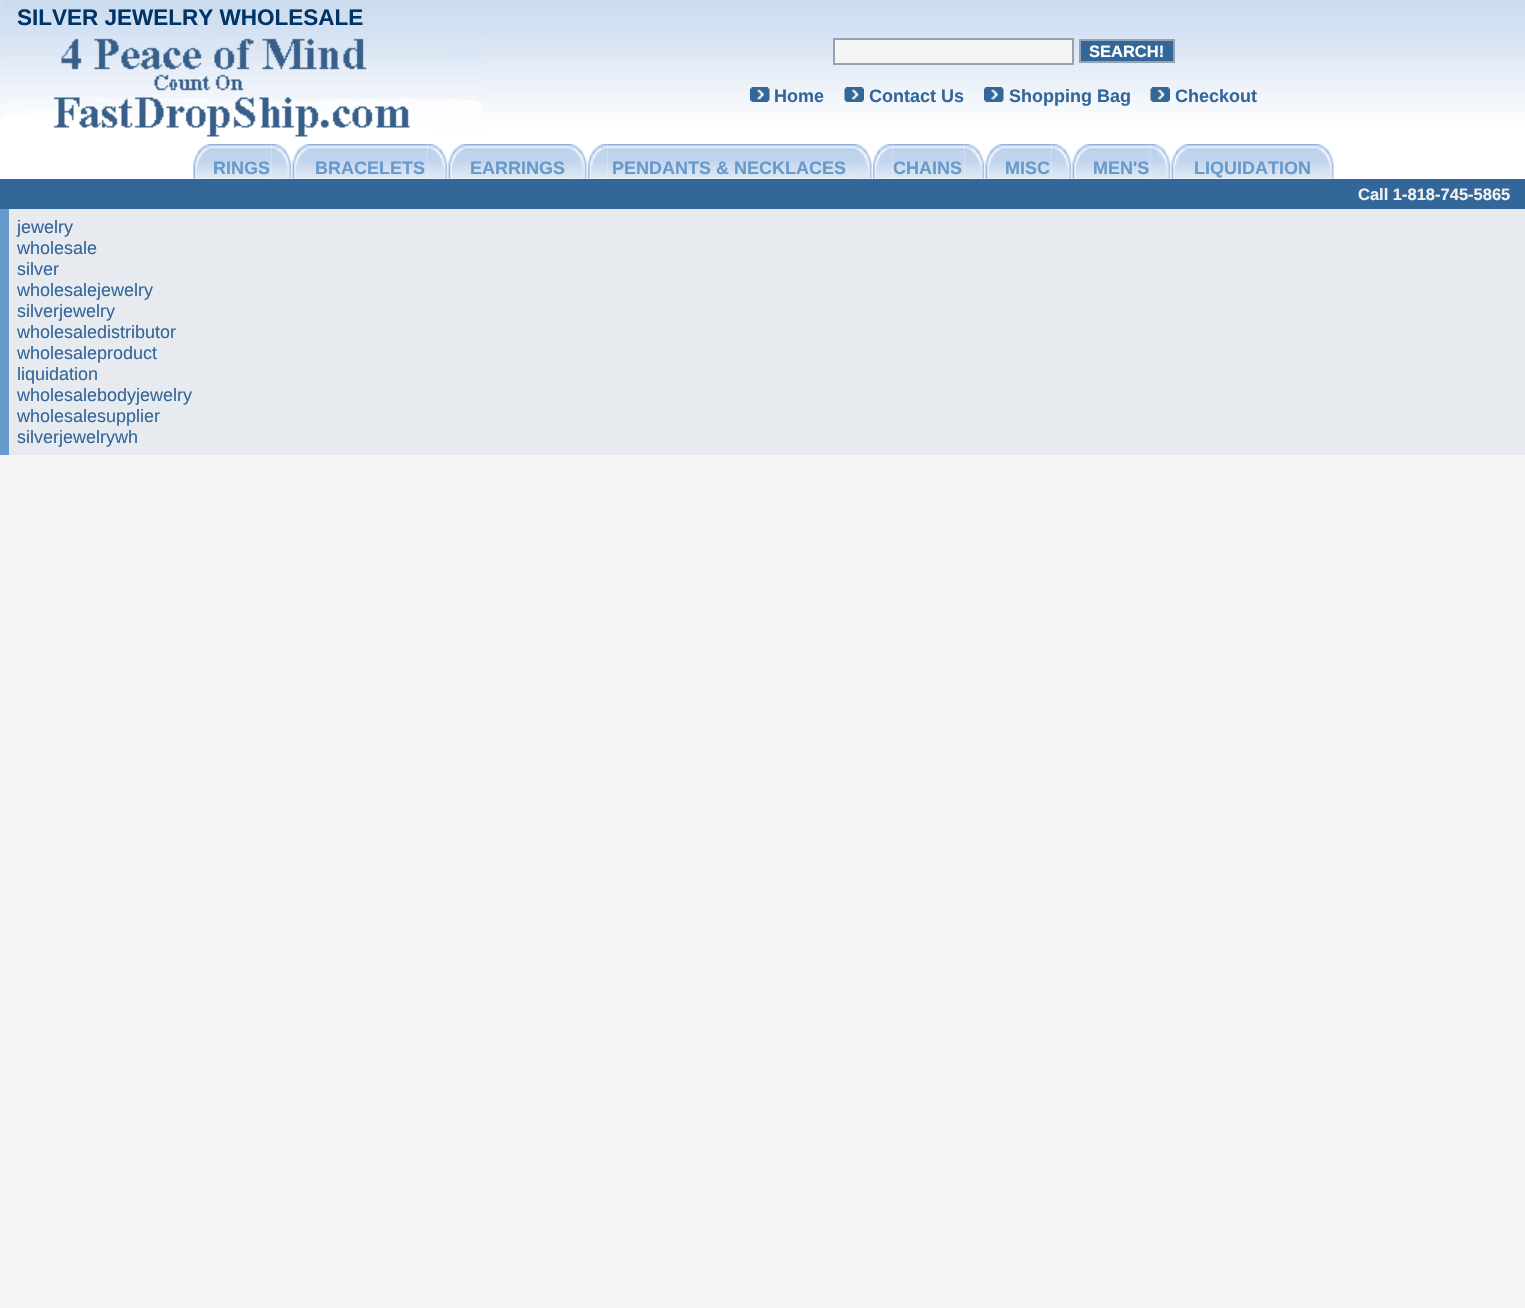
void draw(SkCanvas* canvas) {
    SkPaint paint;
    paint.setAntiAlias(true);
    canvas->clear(0xFFF5F5F5);
    paint.setColor(0xFFFFFFFF);
    canvas->drawRect(SkRect::MakeXYWH(0, 0, 1525, 179), paint);
    canvas->drawImageRect(SkImages::DeferredFromEncodedData(SkData::MakeFromFileName("img1.png")), SkRect::MakeXYWH(0, 0, 2, 121), SkSamplingOptions());
    canvas->drawImageRect(SkImages::DeferredFromEncodedData(SkData::MakeFromFileName("img3.png")), SkRect::MakeXYWH(1, 0, 1524, 121), SkSamplingOptions());
    canvas->drawImageRect(SkImages::DeferredFromEncodedData(SkData::MakeFromFileName("img2.png")), SkRect::MakeXYWH(1, 0, 1, 55), SkSamplingOptions());
    SkFont font1(fontMgr->matchFamilyStyle("Liberation Sans", SkFontStyle::Bold()), 22.5f);
    font1.setSubpixel(true);
    paint.setColor(0xFF003366);
    canvas->drawString("SILVER JEWELRY WHOLESALE", 17, 25, font1, paint);
    canvas->drawImageRect(SkImages::DeferredFromEncodedData(SkData::MakeFromFileName("img4.png")), SkRect::MakeXYWH(1, 38, 481, 99), SkSamplingOptions());
    paint.setColor(0xFFF5F5F5);
    canvas->drawRect(SkRect::MakeXYWH(834, 39, 239, 25), paint);
    paint.setStyle(SkPaint::kStroke_Style);
    paint.setStrokeWidth(2);
    paint.setColor(0xFF96A2AD);
    canvas->drawRect(SkRect::MakeXYWH(834, 39, 239, 25), paint);
    paint.setStyle(SkPaint::kFill_Style);
    paint.setColor(0xFF336699);
    canvas->drawRect(SkRect::MakeXYWH(1080, 40, 94, 22), paint);
    paint.setStyle(SkPaint::kStroke_Style);
    paint.setColor(0xFF96A2AD);
    canvas->drawRect(SkRect::MakeXYWH(1080, 40, 94, 22), paint);
    SkFont font2(fontMgr->matchFamilyStyle("Liberation Sans", SkFontStyle::Bold()), 16.5f);
    font2.setSubpixel(true);
    paint.setStyle(SkPaint::kFill_Style);
    paint.setColor(0xFFFFFFFF);
    canvas->drawString("SEARCH!", 1089, 57, font2, paint);
    canvas->drawImageRect(SkImages::DeferredFromEncodedData(SkData::MakeFromFileName("img5.png")), SkRect::MakeXYWH(750, 87, 20, 15), SkSamplingOptions());
    SkFont font3(fontMgr->matchFamilyStyle("Liberation Sans", SkFontStyle::Bold()), 18);
    font3.setSubpixel(true);
    paint.setColor(0xFF336699);
    canvas->drawString("Home", 774, 102, font3, paint);
    canvas->drawImageRect(SkImages::DeferredFromEncodedData(SkData::MakeFromFileName("img6.png")), SkRect::MakeXYWH(844, 87, 20, 15), SkSamplingOptions());
    canvas->drawString("Contact Us", 869, 102, font3, paint);
    canvas->drawImageRect(SkImages::DeferredFromEncodedData(SkData::MakeFromFileName("img7.png")), SkRect::MakeXYWH(984, 87, 20, 15), SkSamplingOptions());
    canvas->drawString("Shopping Bag", 1009, 102, font3, paint);
    canvas->drawImageRect(SkImages::DeferredFromEncodedData(SkData::MakeFromFileName("img8.png")), SkRect::MakeXYWH(1150, 87, 20, 15), SkSamplingOptions());
    canvas->drawString("Checkout", 1175, 102, font3, paint);
    canvas->drawImageRect(SkImages::DeferredFromEncodedData(SkData::MakeFromFileName("img9.png")), SkRect::MakeXYWH(193, 144, 20, 35), SkSamplingOptions());
    canvas->drawImageRect(SkImages::DeferredFromEncodedData(SkData::MakeFromFileName("img10.png")), SkRect::MakeXYWH(213, 144, 59, 35), SkSamplingOptions());
    paint.setColor(0xFF6699CC);
    canvas->drawString("RINGS", 213, 174, font3, paint);
    canvas->drawImageRect(SkImages::DeferredFromEncodedData(SkData::MakeFromFileName("img11.png")), SkRect::MakeXYWH(271, 144, 41, 35), SkSamplingOptions());
    canvas->drawImageRect(SkImages::DeferredFromEncodedData(SkData::MakeFromFileName("img12.png")), SkRect::MakeXYWH(312, 144, 116, 35), SkSamplingOptions());
    canvas->drawString("BRACELETS", 315, 174, font3, paint);
    canvas->drawImageRect(SkImages::DeferredFromEncodedData(SkData::MakeFromFileName("img13.png")), SkRect::MakeXYWH(427, 144, 41, 35), SkSamplingOptions());
    canvas->drawImageRect(SkImages::DeferredFromEncodedData(SkData::MakeFromFileName("img14.png")), SkRect::MakeXYWH(468, 144, 99, 35), SkSamplingOptions());
    canvas->drawString("EARRINGS", 470, 174, font3, paint);
    canvas->drawImageRect(SkImages::DeferredFromEncodedData(SkData::MakeFromFileName("img16.png")), SkRect::MakeXYWH(607, 144, 245, 35), SkSamplingOptions());
    canvas->drawImageRect(SkImages::DeferredFromEncodedData(SkData::MakeFromFileName("img15.png")), SkRect::MakeXYWH(567, 144, 41, 35), SkSamplingOptions());
    canvas->drawString("PENDANTS & NECKLACES", 612, 174, font3, paint);
    canvas->drawImageRect(SkImages::DeferredFromEncodedData(SkData::MakeFromFileName("img18.png")), SkRect::MakeXYWH(892, 144, 73, 35), SkSamplingOptions());
    canvas->drawImageRect(SkImages::DeferredFromEncodedData(SkData::MakeFromFileName("img17.png")), SkRect::MakeXYWH(852, 144, 41, 35), SkSamplingOptions());
    canvas->drawString("CHAINS", 893, 174, font3, paint);
    canvas->drawImageRect(SkImages::DeferredFromEncodedData(SkData::MakeFromFileName("img11.png")), SkRect::MakeXYWH(964, 144, 41, 35), SkSamplingOptions());
    canvas->drawImageRect(SkImages::DeferredFromEncodedData(SkData::MakeFromFileName("img19.png")), SkRect::MakeXYWH(1005, 144, 47, 35), SkSamplingOptions());
    canvas->drawString("MISC", 1005, 174, font3, paint);
    canvas->drawImageRect(SkImages::DeferredFromEncodedData(SkData::MakeFromFileName("img20.png")), SkRect::MakeXYWH(1051, 144, 41, 35), SkSamplingOptions());
    canvas->drawImageRect(SkImages::DeferredFromEncodedData(SkData::MakeFromFileName("img10.png")), SkRect::MakeXYWH(1092, 144, 59, 35), SkSamplingOptions());
    canvas->drawString("MEN'S", 1093, 174, font3, paint);
    canvas->drawImageRect(SkImages::DeferredFromEncodedData(SkData::MakeFromFileName("img13.png")), SkRect::MakeXYWH(1150, 144, 41, 35), SkSamplingOptions());
    canvas->drawImageRect(SkImages::DeferredFromEncodedData(SkData::MakeFromFileName("img21.png")), SkRect::MakeXYWH(1191, 144, 123, 35), SkSamplingOptions());
    canvas->drawString("LIQUIDATION", 1194, 174, font3, paint);
    canvas->drawImageRect(SkImages::DeferredFromEncodedData(SkData::MakeFromFileName("img22.png")), SkRect::MakeXYWH(1314, 144, 20, 35), SkSamplingOptions());
    paint.setColor(0xFF336699);
    canvas->drawRect(SkRect::MakeXYWH(0, 179, 1525, 30), paint);
    paint.setColor(0xFFF1F1F1);
    canvas->drawString("Call 1-818-745-5865", 1358, 200, font2, paint);
    paint.setColor(0xFF6699CC);
    canvas->drawRect(SkRect::MakeXYWH(0, 209, 9, 246), paint);
    paint.setColor(0xFFE7EBF0);
    canvas->drawRect(SkRect::MakeXYWH(9, 209, 1516, 246), paint);
    SkFont font4(fontMgr->matchFamilyStyle("Liberation Sans", SkFontStyle::Normal()), 18);
    font4.setSubpixel(true);
    paint.setColor(0xFF336699);
    canvas->drawString("jewelry", 17, 233, font4, paint);
    canvas->drawString("wholesale", 17, 254, font4, paint);
    canvas->drawString("silver", 17, 275, font4, paint);
    canvas->drawString("wholesalejewelry", 17, 296, font4, paint);
    canvas->drawString("silverjewelry", 17, 317, font4, paint);
    canvas->drawString("wholesaledistributor", 17, 338, font4, paint);
    canvas->drawString("wholesaleproduct", 17, 359, font4, paint);
    canvas->drawString("liquidation", 17, 380, font4, paint);
    canvas->drawString("wholesalebodyjewelry", 17, 401, font4, paint);
    canvas->drawString("wholesalesupplier", 17, 422, font4, paint);
    canvas->drawString("silverjewelrywh", 17, 443, font4, paint);
}
